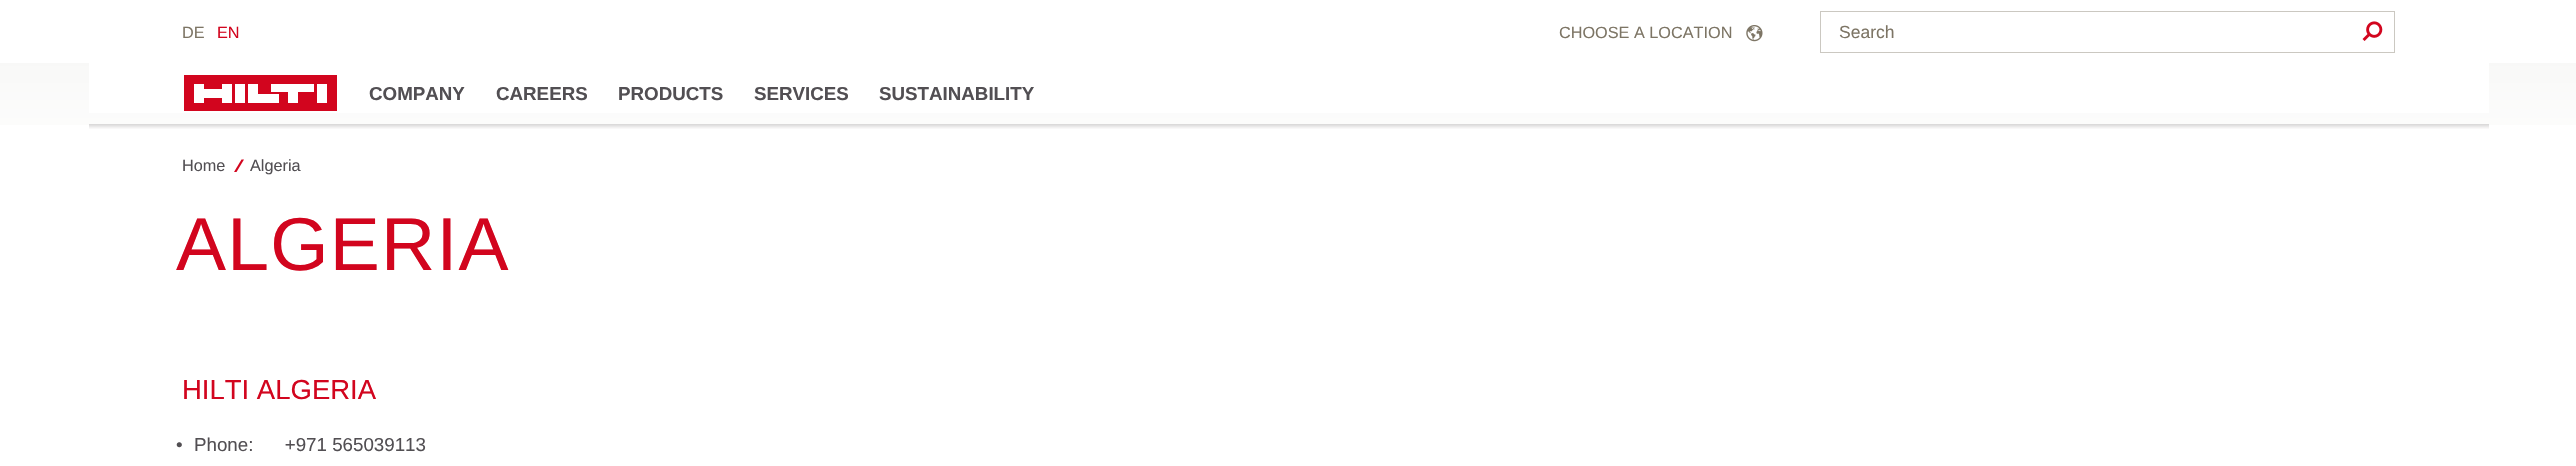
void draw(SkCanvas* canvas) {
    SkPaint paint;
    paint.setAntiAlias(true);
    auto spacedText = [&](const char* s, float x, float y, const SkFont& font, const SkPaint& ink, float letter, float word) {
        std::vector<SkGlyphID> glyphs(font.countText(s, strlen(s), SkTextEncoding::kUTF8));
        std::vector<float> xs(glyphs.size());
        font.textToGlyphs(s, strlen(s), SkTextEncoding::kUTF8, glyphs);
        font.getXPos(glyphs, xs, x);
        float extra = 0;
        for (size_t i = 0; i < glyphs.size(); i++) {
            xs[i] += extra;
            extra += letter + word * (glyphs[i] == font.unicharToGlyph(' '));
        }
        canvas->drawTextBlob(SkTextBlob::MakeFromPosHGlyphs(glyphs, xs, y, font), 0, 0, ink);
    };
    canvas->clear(0xFFFFFFFF);
    {
        const SkColor colors[] = {0x0D7D7565, 0x007D7565};
        const float stops[] = {0, 1};
        const SkPoint ends[] = {{1288, 62}, {1288, 173}};
        paint.setShader(SkGradientShader::MakeLinear(ends, colors, stops, 2, SkTileMode::kClamp));
        paint.setAlpha(255);
    }
    canvas->drawRect(SkRect::MakeXYWH(0, 63, 2576, 62), paint);
    paint.setShader(nullptr);
    paint.setColor(0xFFFFFFFF);
    canvas->drawRect(SkRect::MakeXYWH(89, 63, 2400, 50), paint);
    SkFont font1(fontMgr->matchFamilyStyle("Liberation Sans", SkFontStyle::Normal()), 16.25f);
    font1.setSubpixel(true);
    paint.setColor(0xFF7D7565);
    canvas->drawString("DE", 182, 38, font1, paint);
    paint.setColor(0xFFD2051E);
    canvas->drawString("EN", 217, 38, font1, paint);
    paint.setColor(0xFF7D7565);
    canvas->drawString("CHOOSE A LOCATION", 1559, 38, font1, paint);
    canvas->drawImageRect(SkImages::DeferredFromEncodedData(SkData::MakeFromFileName("img1.png")), SkRect::MakeXYWH(1746, 25, 17, 17), SkSamplingOptions());
    paint.setStyle(SkPaint::kStroke_Style);
    paint.setStrokeWidth(1);
    paint.setColor(0xFFCBC8C1);
    canvas->drawRect(SkRect::MakeXYWH(1820.5f, 11.5f, 574, 41), paint);
    SkFont font2(fontMgr->matchFamilyStyle("Liberation Sans", SkFontStyle::Normal()), 17.5f);
    font2.setSubpixel(true);
    paint.setStyle(SkPaint::kFill_Style);
    paint.setColor(0xFF7D7565);
    canvas->drawString("Search", 1839, 38, font2, paint);
    canvas->drawImageRect(SkImages::DeferredFromEncodedData(SkData::MakeFromFileName("img2.png")), SkRect::MakeXYWH(2362, 21, 21, 20), SkSamplingOptions());
    paint.setColor(0xFFD2051E);
    canvas->drawRect(SkRect::MakeXYWH(184, 75, 153, 36), paint);
    paint.setColor(0xFFFFFFFF);
    canvas->drawPath(SkPathBuilder().moveTo(245, 103).lineTo(235, 103).lineTo(235, 84).lineTo(245, 84).close().moveTo(327, 84).lineTo(317, 84).lineTo(317, 103).lineTo(327, 103).close().moveTo(194, 103).lineTo(204, 103).lineTo(204, 98).lineTo(222, 98).lineTo(222, 103).lineTo(232, 103).lineTo(232, 84).lineTo(222, 84).lineTo(222, 89).lineTo(204, 89).lineTo(204, 84).lineTo(194, 84).close().moveTo(248, 103).lineTo(279, 103).lineTo(279, 94).lineTo(258, 94).lineTo(258, 84).lineTo(248, 84).close().moveTo(271, 92).lineTo(288, 92).lineTo(288, 103).lineTo(298, 103).lineTo(298, 92).lineTo(314, 92).lineTo(314, 84).lineTo(271, 84).close().detach(), paint);
    SkFont font3(fontMgr->matchFamilyStyle("Liberation Sans", SkFontStyle::Bold()), 18.75f);
    font3.setSubpixel(true);
    paint.setColor(0xFF524F53);
    canvas->drawString("COMPANY", 369, 100, font3, paint);
    canvas->drawString("CAREERS", 496, 100, font3, paint);
    canvas->drawString("PRODUCTS", 618, 100, font3, paint);
    canvas->drawString("SERVICES", 754, 100, font3, paint);
    canvas->drawString("SUSTAINABILITY", 879, 100, font3, paint);
    {
        const SkColor colors[] = {0xFFD7D6D6, 0xFFFDFCFC};
        const float stops[] = {0, 1};
        const SkPoint ends[] = {{1289, 124}, {1289, 129}};
        paint.setShader(SkGradientShader::MakeLinear(ends, colors, stops, 2, SkTileMode::kClamp));
        paint.setAlpha(255);
    }
    canvas->drawRect(SkRect::MakeXYWH(89, 124, 2400, 5), paint);
    paint.setShader(nullptr);
    paint.setColor(0xFF524F53);
    canvas->drawString("Home", 182, 171, font1, paint);
    paint.setColor(0xFFD2051E);
    canvas->drawPath(SkPathBuilder().moveTo(241.5f, 159.5f).lineTo(244, 159.5f).lineTo(236.5f, 172).lineTo(234, 172).close().detach(), paint);
    paint.setColor(0xFF524F53);
    canvas->drawString("Algeria", 250, 171, font1, paint);
    SkFont font4(fontMgr->matchFamilyStyle("Liberation Sans", SkFontStyle::Normal()), 75);
    font4.setSubpixel(true);
    paint.setColor(0xFFD2051E);
    spacedText("ALGERIA", 176, 270, font4, paint, 1.25f, 0);
    SkFont font5(fontMgr->matchFamilyStyle("Liberation Sans", SkFontStyle::Normal()), 27.5f);
    font5.setSubpixel(true);
    canvas->drawString("HILTI ALGERIA", 182, 399, font5, paint);
    SkFont font6(fontMgr->matchFamilyStyle("Liberation Sans", SkFontStyle::Normal()), 18.75f);
    font6.setSubpixel(true);
    paint.setColor(0xFF524F53);
    canvas->drawString("•", 176, 451, font6, paint);
    canvas->drawString("Phone:      +971 565039113", 194, 451, font6, paint);
}
